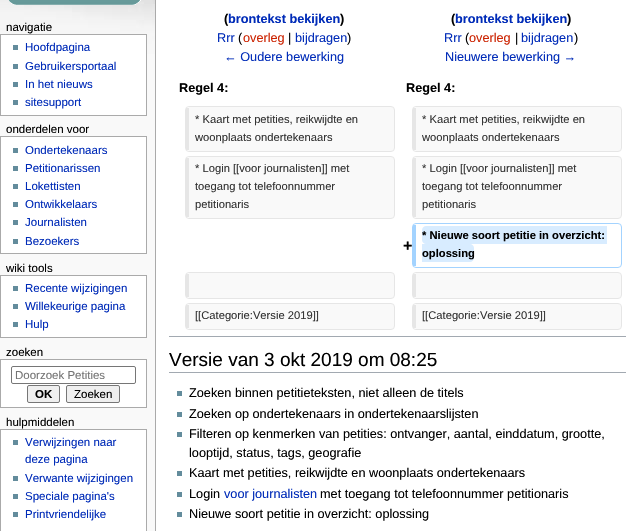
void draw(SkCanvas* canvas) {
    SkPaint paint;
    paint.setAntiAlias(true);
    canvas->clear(0xFFF9F9F9);
    canvas->drawImageRect(SkImages::DeferredFromEncodedData(SkData::MakeFromFileName("img1.png")), SkRect::MakeXYWH(0, 0, 155, 54), SkSamplingOptions());
    canvas->drawImageRect(SkImages::DeferredFromEncodedData(SkData::MakeFromFileName("img2.png")), SkRect::MakeXYWH(9, 0, 132, 5), SkSamplingOptions());
    SkFont font1(fontMgr->matchFamilyStyle("Liberation Sans", SkFontStyle::Normal()), 11.5f);
    font1.setSubpixel(true);
    paint.setColor(0xFF000000);
    canvas->drawString("navigatie", 6, 31, font1, paint);
    paint.setColor(0xFFFFFFFF);
    canvas->drawRect(SkRect::MakeXYWH(0.5f, 34.5f, 146, 81), paint);
    paint.setStyle(SkPaint::kStroke_Style);
    paint.setStrokeWidth(1);
    paint.setColor(0xFFAAAAAA);
    canvas->drawRect(SkRect::MakeXYWH(0.5f, 34.5f, 146, 81), paint);
    paint.setStyle(SkPaint::kFill_Style);
    paint.setColor(0xFF638C9C);
    canvas->drawRect(SkRect::MakeXYWH(13, 45, 5, 5), paint);
    paint.setColor(0xFF002BB8);
    canvas->drawString("Hoofdpagina", 25, 51, font1, paint);
    paint.setColor(0xFF638C9C);
    canvas->drawRect(SkRect::MakeXYWH(13, 64, 5, 5), paint);
    paint.setColor(0xFF002BB8);
    canvas->drawString("Gebruikersportaal", 25, 70, font1, paint);
    paint.setColor(0xFF638C9C);
    canvas->drawRect(SkRect::MakeXYWH(13, 82, 5, 5), paint);
    paint.setColor(0xFF002BB8);
    canvas->drawString("In het nieuws", 25, 88, font1, paint);
    paint.setColor(0xFF638C9C);
    canvas->drawRect(SkRect::MakeXYWH(13, 100, 5, 5), paint);
    paint.setColor(0xFF002BB8);
    canvas->drawString("sitesupport", 25, 106, font1, paint);
    paint.setColor(0xFF000000);
    canvas->drawString("onderdelen voor", 6, 133, font1, paint);
    paint.setColor(0xFFFFFFFF);
    canvas->drawRect(SkRect::MakeXYWH(0.5f, 136.5f, 146, 117), paint);
    paint.setStyle(SkPaint::kStroke_Style);
    paint.setColor(0xFFAAAAAA);
    canvas->drawRect(SkRect::MakeXYWH(0.5f, 136.5f, 146, 117), paint);
    paint.setStyle(SkPaint::kFill_Style);
    paint.setColor(0xFF638C9C);
    canvas->drawRect(SkRect::MakeXYWH(13, 148, 5, 5), paint);
    paint.setColor(0xFF002BB8);
    canvas->drawString("Ondertekenaars", 25, 154, font1, paint);
    paint.setColor(0xFF638C9C);
    canvas->drawRect(SkRect::MakeXYWH(13, 166, 5, 5), paint);
    paint.setColor(0xFF002BB8);
    canvas->drawString("Petitionarissen", 25, 172, font1, paint);
    paint.setColor(0xFF638C9C);
    canvas->drawRect(SkRect::MakeXYWH(13, 184, 5, 5), paint);
    paint.setColor(0xFF002BB8);
    canvas->drawString("Lokettisten", 25, 190, font1, paint);
    paint.setColor(0xFF638C9C);
    canvas->drawRect(SkRect::MakeXYWH(13, 202, 5, 5), paint);
    paint.setColor(0xFF002BB8);
    canvas->drawString("Ontwikkelaars", 25, 208, font1, paint);
    paint.setColor(0xFF638C9C);
    canvas->drawRect(SkRect::MakeXYWH(13, 220, 5, 5), paint);
    paint.setColor(0xFF002BB8);
    canvas->drawString("Journalisten", 25, 226, font1, paint);
    paint.setColor(0xFF638C9C);
    canvas->drawRect(SkRect::MakeXYWH(13, 239, 5, 5), paint);
    paint.setColor(0xFF002BB8);
    canvas->drawString("Bezoekers", 25, 245, font1, paint);
    paint.setColor(0xFF000000);
    canvas->drawString("wiki tools", 6, 272, font1, paint);
    paint.setColor(0xFFFFFFFF);
    canvas->drawRect(SkRect::MakeXYWH(0.5f, 275.5f, 146, 62), paint);
    paint.setStyle(SkPaint::kStroke_Style);
    paint.setColor(0xFFAAAAAA);
    canvas->drawRect(SkRect::MakeXYWH(0.5f, 275.5f, 146, 62), paint);
    paint.setStyle(SkPaint::kFill_Style);
    paint.setColor(0xFF638C9C);
    canvas->drawRect(SkRect::MakeXYWH(13, 286, 5, 5), paint);
    paint.setColor(0xFF002BB8);
    canvas->drawString("Recente wijzigingen", 25, 292, font1, paint);
    paint.setColor(0xFF638C9C);
    canvas->drawRect(SkRect::MakeXYWH(13, 304, 5, 5), paint);
    paint.setColor(0xFF002BB8);
    canvas->drawString("Willekeurige pagina", 25, 310, font1, paint);
    paint.setColor(0xFF638C9C);
    canvas->drawRect(SkRect::MakeXYWH(13, 322, 5, 5), paint);
    paint.setColor(0xFF002BB8);
    canvas->drawString("Hulp", 25, 328, font1, paint);
    paint.setColor(0xFF000000);
    canvas->drawString("zoeken", 6, 356, font1, paint);
    paint.setColor(0xFFFFFFFF);
    canvas->drawRect(SkRect::MakeXYWH(0.5f, 359.5f, 146, 48), paint);
    paint.setStyle(SkPaint::kStroke_Style);
    paint.setColor(0xFFAAAAAA);
    canvas->drawRect(SkRect::MakeXYWH(0.5f, 359.5f, 146, 48), paint);
    paint.setColor(0xFF767676);
    canvas->drawRoundRect(SkRect::MakeXYWH(11.5f, 366.5f, 124, 17), 1.5f, 1.5f, paint);
    paint.setStyle(SkPaint::kFill_Style);
    paint.setColor(0xFF757575);
    canvas->drawString("Doorzoek Petities", 15, 379, font1, paint);
    paint.setColor(0xFFEFEFEF);
    canvas->drawRoundRect(SkRect::MakeXYWH(27.5f, 385.5f, 32, 17), 1.5f, 1.5f, paint);
    paint.setStyle(SkPaint::kStroke_Style);
    paint.setColor(0xFF767676);
    canvas->drawRoundRect(SkRect::MakeXYWH(27.5f, 385.5f, 32, 17), 1.5f, 1.5f, paint);
    SkFont font2(fontMgr->matchFamilyStyle("Liberation Sans", SkFontStyle::Bold()), 11.5f);
    font2.setSubpixel(true);
    paint.setStyle(SkPaint::kFill_Style);
    paint.setColor(0xFF000000);
    canvas->drawString("OK", 35, 398, font2, paint);
    paint.setColor(0xFFEFEFEF);
    canvas->drawRoundRect(SkRect::MakeXYWH(66.5f, 385.5f, 53, 17), 1.5f, 1.5f, paint);
    paint.setStyle(SkPaint::kStroke_Style);
    paint.setColor(0xFF767676);
    canvas->drawRoundRect(SkRect::MakeXYWH(66.5f, 385.5f, 53, 17), 1.5f, 1.5f, paint);
    paint.setStyle(SkPaint::kFill_Style);
    paint.setColor(0xFF000000);
    canvas->drawString("Zoeken", 74, 398, font1, paint);
    canvas->drawString("hulpmiddelen", 6, 426, font1, paint);
    paint.setColor(0xFFFFFFFF);
    canvas->drawRect(SkRect::MakeXYWH(0.5f, 429.5f, 146, 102), paint);
    paint.setStyle(SkPaint::kStroke_Style);
    paint.setColor(0xFFAAAAAA);
    canvas->drawRect(SkRect::MakeXYWH(0.5f, 429.5f, 146, 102), paint);
    paint.setStyle(SkPaint::kFill_Style);
    paint.setColor(0xFF638C9C);
    canvas->drawRect(SkRect::MakeXYWH(13, 440, 5, 5), paint);
    paint.setColor(0xFF002BB8);
    canvas->drawString("Verwijzingen naar", 25, 446, font1, paint);
    canvas->drawString("deze pagina", 25, 463, font1, paint);
    paint.setColor(0xFF638C9C);
    canvas->drawRect(SkRect::MakeXYWH(13, 476, 5, 5), paint);
    paint.setColor(0xFF002BB8);
    canvas->drawString("Verwante wijzigingen", 25, 482, font1, paint);
    paint.setColor(0xFF638C9C);
    canvas->drawRect(SkRect::MakeXYWH(13, 494, 5, 5), paint);
    paint.setColor(0xFF002BB8);
    canvas->drawString("Speciale pagina's", 25, 500, font1, paint);
    paint.setColor(0xFF638C9C);
    canvas->drawRect(SkRect::MakeXYWH(13, 512, 5, 5), paint);
    paint.setColor(0xFF002BB8);
    canvas->drawString("Printvriendelijke", 25, 518, font1, paint);
    paint.setColor(0xFFFFFFFF);
    canvas->drawRect(SkRect::MakeXYWH(156, 0, 483, 531), paint);
    paint.setColor(0xFFAAAAAA);
    canvas->drawRect(SkRect::MakeXYWH(155, 0, 1, 531), paint);
    SkFont font3(fontMgr->matchFamilyStyle("Liberation Sans", SkFontStyle::Bold()), 12.7f);
    font3.setSubpixel(true);
    paint.setColor(0xFF000000);
    canvas->drawString("(", 224, 23, font3, paint);
    paint.setColor(0xFF002BB8);
    canvas->drawString("brontekst bekijken", 228, 23, font3, paint);
    paint.setColor(0xFF000000);
    canvas->drawString(")", 340, 23, font3, paint);
    SkFont font4(fontMgr->matchFamilyStyle("Liberation Sans", SkFontStyle::Normal()), 12.7f);
    font4.setSubpixel(true);
    paint.setColor(0xFF002BB8);
    canvas->drawString("Rrr", 217, 42, font4, paint);
    paint.setColor(0xFF000000);
    canvas->drawString("(", 238, 42, font4, paint);
    paint.setColor(0xFFCC2200);
    canvas->drawString("overleg", 243, 42, font4, paint);
    paint.setColor(0xFF000000);
    canvas->drawString("|", 288, 42, font4, paint);
    paint.setColor(0xFF002BB8);
    canvas->drawString("bijdragen", 295, 42, font4, paint);
    paint.setColor(0xFF000000);
    canvas->drawString(")", 347, 42, font4, paint);
    paint.setColor(0xFF002BB8);
    canvas->drawString("← Oudere bewerking", 224, 61, font4, paint);
    paint.setColor(0xFF000000);
    canvas->drawString("(", 451, 23, font3, paint);
    paint.setColor(0xFF002BB8);
    canvas->drawString("brontekst bekijken", 455, 23, font3, paint);
    paint.setColor(0xFF000000);
    canvas->drawString(")", 567, 23, font3, paint);
    paint.setColor(0xFF002BB8);
    canvas->drawString("Rrr", 444, 42, font4, paint);
    paint.setColor(0xFF000000);
    canvas->drawString("(", 465, 42, font4, paint);
    paint.setColor(0xFFCC2200);
    canvas->drawString("overleg", 469, 42, font4, paint);
    paint.setColor(0xFF000000);
    canvas->drawString("|", 515, 42, font4, paint);
    paint.setColor(0xFF002BB8);
    canvas->drawString("bijdragen", 521, 42, font4, paint);
    paint.setColor(0xFF000000);
    canvas->drawString(")", 574, 42, font4, paint);
    paint.setColor(0xFF002BB8);
    canvas->drawString("Nieuwere bewerking →", 445, 61, font4, paint);
    paint.setColor(0xFF000000);
    canvas->drawString("Regel 4:", 179, 92, font3, paint);
    canvas->drawString("Regel 4:", 406, 92, font3, paint);
    paint.setColor(0xFFF9F9F9);
    canvas->drawPath(SkPathBuilder().moveTo(189, 107).lineTo(391, 107).cubicTo(393, 107, 394, 108, 394, 110).lineTo(394, 148).cubicTo(394, 150, 393, 151, 391, 151).lineTo(189, 151).close().detach(), paint);
    paint.setStyle(SkPaint::kStroke_Style);
    paint.setColor(0xFFE6E6E6);
    canvas->drawRoundRect(SkRect::MakeXYWH(185.5f, 106.5f, 209, 45), 3.5f, 3.5f, paint);
    paint.setStyle(SkPaint::kFill_Style);
    canvas->drawRect(SkRect::MakeXYWH(186, 108, 3, 42), paint);
    SkFont font5(fontMgr->matchFamilyStyle("Liberation Sans", SkFontStyle::Normal()), 11.2f);
    font5.setSubpixel(true);
    paint.setColor(0xFF333333);
    canvas->drawString("* Kaart met petities, reikwijdte en", 195, 123, font5, paint);
    canvas->drawString("woonplaats ondertekenaars", 195, 141, font5, paint);
    paint.setColor(0xFFF9F9F9);
    canvas->drawPath(SkPathBuilder().moveTo(416, 107).lineTo(618, 107).cubicTo(620, 107, 621, 108, 621, 110).lineTo(621, 148).cubicTo(621, 150, 620, 151, 618, 151).lineTo(416, 151).close().detach(), paint);
    paint.setStyle(SkPaint::kStroke_Style);
    paint.setColor(0xFFE6E6E6);
    canvas->drawRoundRect(SkRect::MakeXYWH(412.5f, 106.5f, 209, 45), 3.5f, 3.5f, paint);
    paint.setStyle(SkPaint::kFill_Style);
    canvas->drawRect(SkRect::MakeXYWH(413, 108, 3, 42), paint);
    paint.setColor(0xFF333333);
    canvas->drawString("* Kaart met petities, reikwijdte en", 422, 123, font5, paint);
    canvas->drawString("woonplaats ondertekenaars", 422, 141, font5, paint);
    paint.setColor(0xFFF9F9F9);
    canvas->drawPath(SkPathBuilder().moveTo(189, 157).lineTo(391, 157).cubicTo(393, 157, 394, 158, 394, 160).lineTo(394, 215).cubicTo(394, 217, 393, 218, 391, 218).lineTo(189, 218).close().detach(), paint);
    paint.setStyle(SkPaint::kStroke_Style);
    paint.setColor(0xFFE6E6E6);
    canvas->drawRoundRect(SkRect::MakeXYWH(185.5f, 156.5f, 209, 62), 3.5f, 3.5f, paint);
    paint.setStyle(SkPaint::kFill_Style);
    canvas->drawRect(SkRect::MakeXYWH(186, 158, 3, 59), paint);
    paint.setColor(0xFF333333);
    canvas->drawString("* Login [[voor journalisten]] met", 195, 172, font5, paint);
    canvas->drawString("toegang tot telefoonnummer", 195, 190, font5, paint);
    canvas->drawString("petitionaris", 195, 208, font5, paint);
    paint.setColor(0xFFF9F9F9);
    canvas->drawPath(SkPathBuilder().moveTo(416, 157).lineTo(618, 157).cubicTo(620, 157, 621, 158, 621, 160).lineTo(621, 215).cubicTo(621, 217, 620, 218, 618, 218).lineTo(416, 218).close().detach(), paint);
    paint.setStyle(SkPaint::kStroke_Style);
    paint.setColor(0xFFE6E6E6);
    canvas->drawRoundRect(SkRect::MakeXYWH(412.5f, 156.5f, 209, 62), 3.5f, 3.5f, paint);
    paint.setStyle(SkPaint::kFill_Style);
    canvas->drawRect(SkRect::MakeXYWH(413, 158, 3, 59), paint);
    paint.setColor(0xFF333333);
    canvas->drawString("* Login [[voor journalisten]] met", 422, 172, font5, paint);
    canvas->drawString("toegang tot telefoonnummer", 422, 190, font5, paint);
    canvas->drawString("petitionaris", 422, 208, font5, paint);
    paint.setStyle(SkPaint::kStroke_Style);
    paint.setColor(0xFFA3D3FF);
    canvas->drawRoundRect(SkRect::MakeXYWH(412.5f, 223.5f, 209, 44), 3.5f, 3.5f, paint);
    SkFont font6(fontMgr->matchFamilyStyle("Liberation Sans", SkFontStyle::Bold()), 16);
    font6.setSubpixel(true);
    paint.setStyle(SkPaint::kFill_Style);
    paint.setColor(0xFF000000);
    canvas->drawString("+", 403, 251, font6, paint);
    paint.setColor(0xFFA3D3FF);
    canvas->drawRect(SkRect::MakeXYWH(413, 225, 3, 41), paint);
    paint.setColor(0xFFD8ECFF);
    canvas->drawPath(SkPathBuilder().moveTo(426, 226).lineTo(604, 226).lineTo(604, 244).lineTo(426, 244).cubicTo(424, 244, 422, 242, 422, 240).lineTo(422, 230).cubicTo(422, 228, 424, 226, 426, 226).close().detach(), paint);
    SkFont font7(fontMgr->matchFamilyStyle("Liberation Sans", SkFontStyle::Bold()), 11.2f);
    font7.setSubpixel(true);
    paint.setColor(0xFF000000);
    canvas->drawString("* Nieuwe soort petitie in overzicht:", 422, 239, font7, paint);
    paint.setColor(0xFFD8ECFF);
    canvas->drawRect(SkRect::MakeXYWH(604, 226, 3, 18), paint);
    canvas->drawPath(SkPathBuilder().moveTo(422, 244).lineTo(470, 244).cubicTo(472, 244, 474, 246, 474, 248).lineTo(474, 258).cubicTo(474, 260, 472, 262, 470, 262).lineTo(422, 262).close().detach(), paint);
    paint.setColor(0xFF000000);
    canvas->drawString("oplossing", 422, 257, font7, paint);
    paint.setColor(0xFFF9F9F9);
    canvas->drawPath(SkPathBuilder().moveTo(189, 273).lineTo(391, 273).cubicTo(393, 273, 394, 274, 394, 276).lineTo(394, 295).cubicTo(394, 297, 393, 298, 391, 298).lineTo(189, 298).close().detach(), paint);
    paint.setStyle(SkPaint::kStroke_Style);
    paint.setColor(0xFFE6E6E6);
    canvas->drawRoundRect(SkRect::MakeXYWH(185.5f, 272.5f, 209, 26), 3.5f, 3.5f, paint);
    paint.setStyle(SkPaint::kFill_Style);
    canvas->drawRect(SkRect::MakeXYWH(186, 274, 3, 23), paint);
    paint.setColor(0xFFF9F9F9);
    canvas->drawPath(SkPathBuilder().moveTo(416, 273).lineTo(618, 273).cubicTo(620, 273, 621, 274, 621, 276).lineTo(621, 295).cubicTo(621, 297, 620, 298, 618, 298).lineTo(416, 298).close().detach(), paint);
    paint.setStyle(SkPaint::kStroke_Style);
    paint.setColor(0xFFE6E6E6);
    canvas->drawRoundRect(SkRect::MakeXYWH(412.5f, 272.5f, 209, 26), 3.5f, 3.5f, paint);
    paint.setStyle(SkPaint::kFill_Style);
    canvas->drawRect(SkRect::MakeXYWH(413, 274, 3, 23), paint);
    paint.setColor(0xFFF9F9F9);
    canvas->drawPath(SkPathBuilder().moveTo(189, 304).lineTo(391, 304).cubicTo(393, 304, 394, 305, 394, 307).lineTo(394, 326).cubicTo(394, 328, 393, 329, 391, 329).lineTo(189, 329).close().detach(), paint);
    paint.setStyle(SkPaint::kStroke_Style);
    paint.setColor(0xFFE6E6E6);
    canvas->drawRoundRect(SkRect::MakeXYWH(185.5f, 303.5f, 209, 26), 3.5f, 3.5f, paint);
    paint.setStyle(SkPaint::kFill_Style);
    canvas->drawRect(SkRect::MakeXYWH(186, 305, 3, 23), paint);
    paint.setColor(0xFF333333);
    canvas->drawString("[[Categorie:Versie 2019]]", 195, 319, font5, paint);
    paint.setColor(0xFFF9F9F9);
    canvas->drawPath(SkPathBuilder().moveTo(416, 304).lineTo(618, 304).cubicTo(620, 304, 621, 305, 621, 307).lineTo(621, 326).cubicTo(621, 328, 620, 329, 618, 329).lineTo(416, 329).close().detach(), paint);
    paint.setStyle(SkPaint::kStroke_Style);
    paint.setColor(0xFFE6E6E6);
    canvas->drawRoundRect(SkRect::MakeXYWH(412.5f, 303.5f, 209, 26), 3.5f, 3.5f, paint);
    paint.setStyle(SkPaint::kFill_Style);
    canvas->drawRect(SkRect::MakeXYWH(413, 305, 3, 23), paint);
    paint.setColor(0xFF333333);
    canvas->drawString("[[Categorie:Versie 2019]]", 422, 319, font5, paint);
    paint.setColor(0xFFA2A9B1);
    canvas->drawRect(SkRect::MakeXYWH(169, 336, 457, 1), paint);
    canvas->drawRect(SkRect::MakeXYWH(169, 372, 457, 1), paint);
    SkFont font8(fontMgr->matchFamilyStyle("Liberation Sans", SkFontStyle::Normal()), 19);
    font8.setSubpixel(true);
    paint.setColor(0xFF000000);
    canvas->drawString("Versie van 3 okt 2019 om 08:25", 169, 366, font8, paint);
    paint.setColor(0xFF638C9C);
    canvas->drawRect(SkRect::MakeXYWH(177, 391, 5, 5), paint);
    paint.setColor(0xFF000000);
    canvas->drawString("Zoeken binnen petitieteksten, niet alleen de titels", 189, 397, font4, paint);
    paint.setColor(0xFF638C9C);
    canvas->drawRect(SkRect::MakeXYWH(177, 412, 5, 5), paint);
    paint.setColor(0xFF000000);
    canvas->drawString("Zoeken op ondertekenaars in ondertekenaarslijsten", 189, 418, font4, paint);
    paint.setColor(0xFF638C9C);
    canvas->drawRect(SkRect::MakeXYWH(177, 432, 5, 5), paint);
    paint.setColor(0xFF000000);
    canvas->drawString("Filteren op kenmerken van petities: ontvanger, aantal, einddatum, grootte,", 189, 438, font4, paint);
    canvas->drawString("looptijd, status, tags, geografie", 189, 457, font4, paint);
    paint.setColor(0xFF638C9C);
    canvas->drawRect(SkRect::MakeXYWH(177, 471, 5, 5), paint);
    paint.setColor(0xFF000000);
    canvas->drawString("Kaart met petities, reikwijdte en woonplaats ondertekenaars", 189, 477, font4, paint);
    paint.setColor(0xFF638C9C);
    canvas->drawRect(SkRect::MakeXYWH(177, 492, 5, 5), paint);
    paint.setColor(0xFF000000);
    canvas->drawString("Login", 189, 498, font4, paint);
    paint.setColor(0xFF002BB8);
    canvas->drawString("voor journalisten", 224, 498, font4, paint);
    paint.setColor(0xFF000000);
    canvas->drawString("met toegang tot telefoonnummer petitionaris", 320, 498, font4, paint);
    paint.setColor(0xFF638C9C);
    canvas->drawRect(SkRect::MakeXYWH(177, 512, 5, 5), paint);
    paint.setColor(0xFF000000);
    canvas->drawString("Nieuwe soort petitie in overzicht: oplossing", 189, 518, font4, paint);
}
